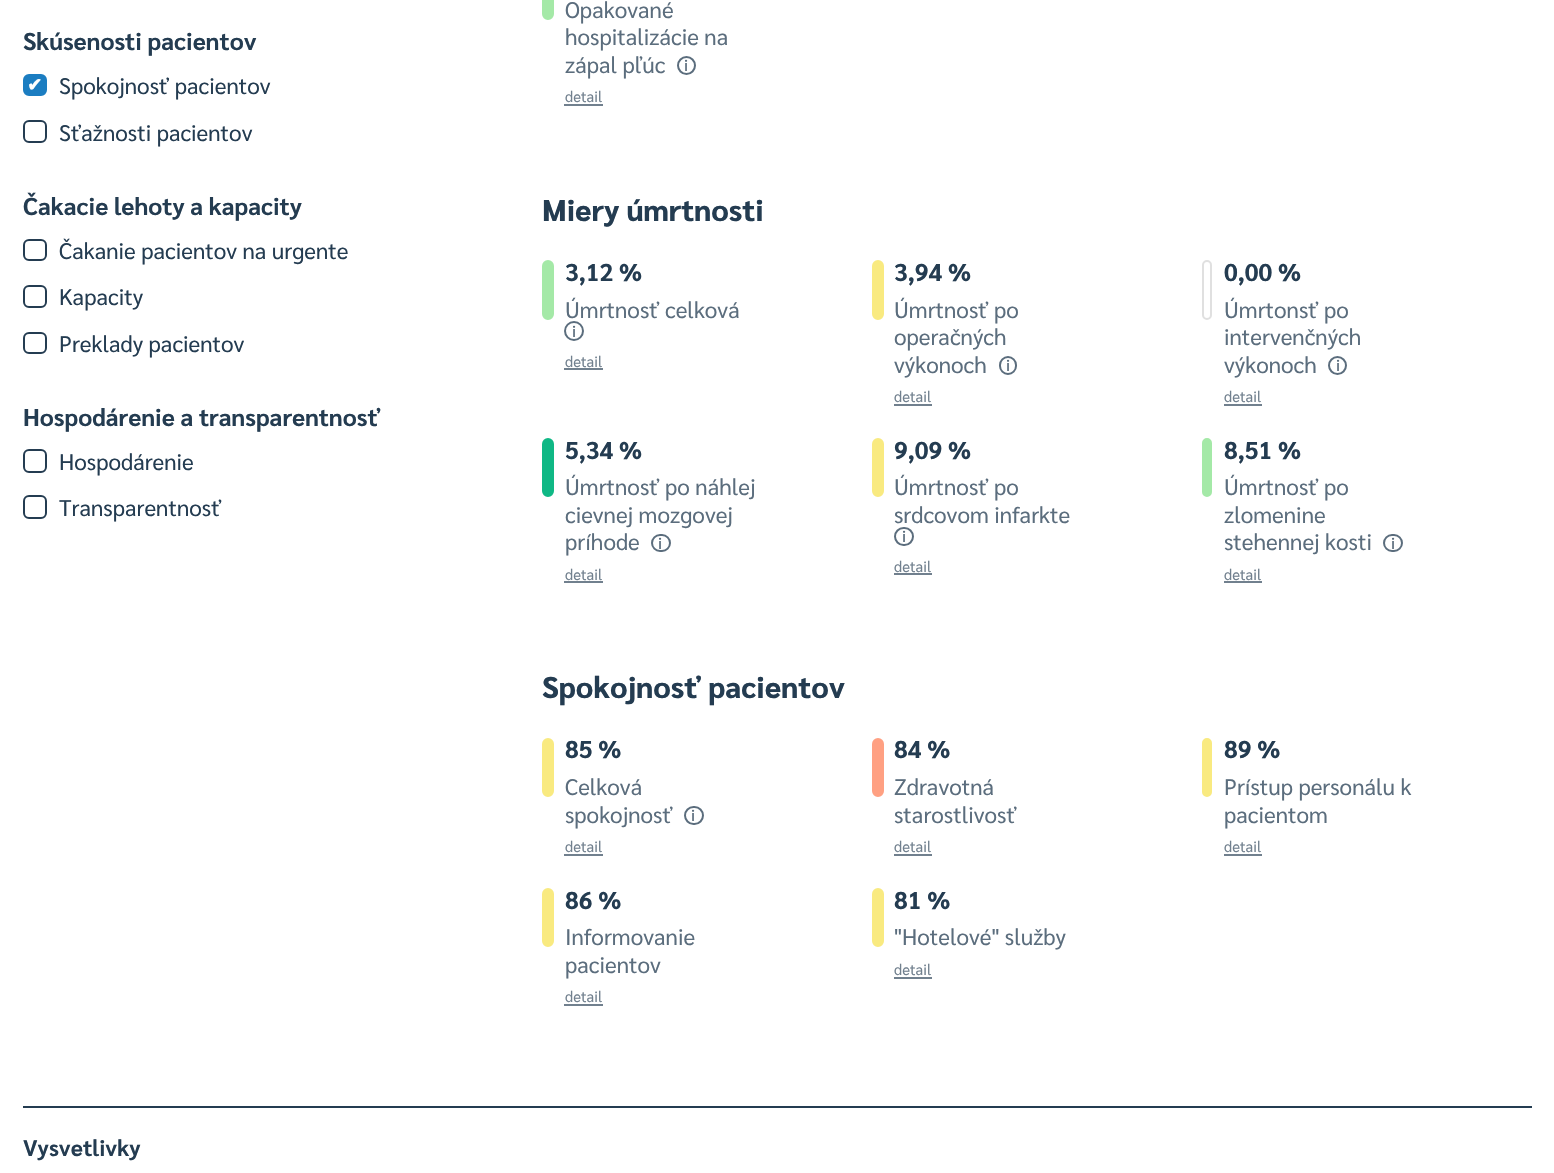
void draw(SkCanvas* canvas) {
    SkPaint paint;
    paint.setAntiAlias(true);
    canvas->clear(0xFFFFFFFF);
    SkFont font1(fontMgr->matchFamilyStyle("Sarabun", SkFontStyle::Bold()), 24.25f);
    font1.setSubpixel(true);
    paint.setColor(0xFF243C51);
    canvas->drawString("Skúsenosti pacientov", 23, 50, font1, paint);
    paint.setColor(0xFF1B7DC1);
    canvas->drawRoundRect(SkRect::MakeXYWH(24, 75, 22, 20), 5, 5, paint);
    paint.setStyle(SkPaint::kStroke_Style);
    paint.setStrokeWidth(2);
    canvas->drawRoundRect(SkRect::MakeXYWH(24, 75, 22, 20), 5, 5, paint);
    SkFont font2(fontMgr->matchFamilyStyle("DejaVu Sans", SkFontStyle::Bold()), 18);
    font2.setSubpixel(true);
    paint.setStyle(SkPaint::kFill_Style);
    paint.setColor(0xFFFFFEFD);
    canvas->drawString("✔", 27, 91, font2, paint);
    SkFont font3(fontMgr->matchFamilyStyle("Sarabun", SkFontStyle::Normal()), 22.5f);
    font3.setSubpixel(true);
    paint.setColor(0xFF243C51);
    canvas->drawString("Spokojnosť pacientov", 59, 94, font3, paint);
    paint.setStyle(SkPaint::kStroke_Style);
    canvas->drawRoundRect(SkRect::MakeXYWH(24, 121, 22, 21), 5, 5, paint);
    paint.setStyle(SkPaint::kFill_Style);
    canvas->drawString("Sťažnosti pacientov", 59, 141, font3, paint);
    canvas->drawString("Čakacie lehoty a kapacity", 23, 215, font1, paint);
    paint.setStyle(SkPaint::kStroke_Style);
    canvas->drawRoundRect(SkRect::MakeXYWH(24, 240, 22, 20), 5, 5, paint);
    paint.setStyle(SkPaint::kFill_Style);
    canvas->drawString("Čakanie pacientov na urgente", 59, 259, font3, paint);
    paint.setStyle(SkPaint::kStroke_Style);
    canvas->drawRoundRect(SkRect::MakeXYWH(24, 286, 22, 21), 5, 5, paint);
    paint.setStyle(SkPaint::kFill_Style);
    canvas->drawString("Kapacity", 59, 305, font3, paint);
    paint.setStyle(SkPaint::kStroke_Style);
    canvas->drawRoundRect(SkRect::MakeXYWH(24, 333, 22, 20), 5, 5, paint);
    paint.setStyle(SkPaint::kFill_Style);
    canvas->drawString("Preklady pacientov", 59, 352, font3, paint);
    canvas->drawString("Hospodárenie a transparentnosť", 23, 426, font1, paint);
    paint.setStyle(SkPaint::kStroke_Style);
    canvas->drawRoundRect(SkRect::MakeXYWH(24, 450, 22, 22), 5, 5, paint);
    paint.setStyle(SkPaint::kFill_Style);
    canvas->drawString("Hospodárenie", 59, 470, font3, paint);
    paint.setStyle(SkPaint::kStroke_Style);
    canvas->drawRoundRect(SkRect::MakeXYWH(24, 496, 22, 22), 5, 5, paint);
    paint.setStyle(SkPaint::kFill_Style);
    canvas->drawString("Transparentnosť", 59, 516, font3, paint);
    paint.setColor(0xFFA4E9A7);
    canvas->drawRoundRect(SkRect::MakeXYWH(543, -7, 10, 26), 5, 5, paint);
    paint.setStyle(SkPaint::kStroke_Style);
    canvas->drawRoundRect(SkRect::MakeXYWH(543, -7, 10, 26), 5, 5, paint);
    paint.setStyle(SkPaint::kFill_Style);
    paint.setColor(0xFF5B6D7D);
    canvas->drawString("Opakované", 565, 18, font3, paint);
    canvas->drawString("hospitalizácie na", 565, 45, font3, paint);
    canvas->drawString("zápal pľúc", 565, 73, font3, paint);
    paint.setStyle(SkPaint::kStroke_Style);
    canvas->drawCircle(686.5f, 65.5f, 8.5f, paint);
    SkFont font4(fontMgr->matchFamilyStyle("Sarabun", SkFontStyle(500, SkFontStyle::kNormal_Width, SkFontStyle::kUpright_Slant)), 16);
    font4.setSubpixel(true);
    paint.setStyle(SkPaint::kFill_Style);
    canvas->drawString("i", 684, 71, font4, paint);
    SkFont font5(fontMgr->matchFamilyStyle("Sarabun", SkFontStyle::Normal()), 15);
    font5.setSubpixel(true);
    paint.setColor(0xFF71808E);
    canvas->drawString("detail", 565, 102, font5, paint);
    canvas->drawRect(SkRect::MakeXYWH(564, 104, 39, 2), paint);
    SkFont font6(fontMgr->matchFamilyStyle("Sarabun", SkFontStyle(800, SkFontStyle::kNormal_Width, SkFontStyle::kUpright_Slant)), 30);
    font6.setSubpixel(true);
    paint.setColor(0xFF243C51);
    canvas->drawString("Miery úmrtnosti", 542, 221, font6, paint);
    paint.setColor(0xFFA4E9A7);
    canvas->drawRoundRect(SkRect::MakeXYWH(543, 261, 10, 58), 5, 5, paint);
    paint.setStyle(SkPaint::kStroke_Style);
    canvas->drawRoundRect(SkRect::MakeXYWH(543, 261, 10, 58), 5, 5, paint);
    paint.setStyle(SkPaint::kFill_Style);
    paint.setColor(0xFF243C51);
    canvas->drawString("3,12 %", 565, 281, font1, paint);
    paint.setColor(0xFF5B6D7D);
    canvas->drawString("Úmrtnosť celková", 565, 318, font3, paint);
    paint.setStyle(SkPaint::kStroke_Style);
    canvas->drawCircle(574, 331, 9, paint);
    paint.setStyle(SkPaint::kFill_Style);
    canvas->drawString("i", 572, 337, font4, paint);
    paint.setColor(0xFF71808E);
    canvas->drawString("detail", 565, 367, font5, paint);
    canvas->drawRect(SkRect::MakeXYWH(564, 368, 39, 2), paint);
    paint.setColor(0xFFF9EA80);
    canvas->drawRoundRect(SkRect::MakeXYWH(873, 261, 10, 58), 5, 5, paint);
    paint.setStyle(SkPaint::kStroke_Style);
    canvas->drawRoundRect(SkRect::MakeXYWH(873, 261, 10, 58), 5, 5, paint);
    paint.setStyle(SkPaint::kFill_Style);
    paint.setColor(0xFF243C51);
    canvas->drawString("3,94 %", 894, 281, font1, paint);
    paint.setColor(0xFF5B6D7D);
    canvas->drawString("Úmrtnosť po", 894, 318, font3, paint);
    canvas->drawString("operačných", 894, 345, font3, paint);
    canvas->drawString("výkonoch", 894, 373, font3, paint);
    paint.setStyle(SkPaint::kStroke_Style);
    canvas->drawRoundRect(SkRect::MakeXYWH(1000, 357, 16, 17), 8, 8, paint);
    paint.setStyle(SkPaint::kFill_Style);
    canvas->drawString("i", 1006, 371, font4, paint);
    paint.setColor(0xFF71808E);
    canvas->drawString("detail", 894, 402, font5, paint);
    canvas->drawRect(SkRect::MakeXYWH(894, 404, 38, 2), paint);
    paint.setStyle(SkPaint::kStroke_Style);
    paint.setColor(0xFFE0E0E0);
    canvas->drawRoundRect(SkRect::MakeXYWH(1203, 261, 8, 58), 4, 4, paint);
    paint.setStyle(SkPaint::kFill_Style);
    paint.setColor(0xFF243C51);
    canvas->drawString("0,00 %", 1224, 281, font1, paint);
    paint.setColor(0xFF5B6D7D);
    canvas->drawString("Úmrtonsť po", 1224, 318, font3, paint);
    canvas->drawString("intervenčných", 1224, 345, font3, paint);
    canvas->drawString("výkonoch", 1224, 373, font3, paint);
    paint.setStyle(SkPaint::kStroke_Style);
    canvas->drawCircle(1337.5f, 365.5f, 8.5f, paint);
    paint.setStyle(SkPaint::kFill_Style);
    canvas->drawString("i", 1336, 371, font4, paint);
    paint.setColor(0xFF71808E);
    canvas->drawString("detail", 1224, 402, font5, paint);
    canvas->drawRect(SkRect::MakeXYWH(1224, 404, 38, 2), paint);
    paint.setColor(0xFF0FB885);
    canvas->drawRoundRect(SkRect::MakeXYWH(543, 439, 10, 57), 5, 5, paint);
    paint.setStyle(SkPaint::kStroke_Style);
    canvas->drawRoundRect(SkRect::MakeXYWH(543, 439, 10, 57), 5, 5, paint);
    paint.setStyle(SkPaint::kFill_Style);
    paint.setColor(0xFF243C51);
    canvas->drawString("5,34 %", 565, 459, font1, paint);
    paint.setColor(0xFF5B6D7D);
    canvas->drawString("Úmrtnosť po náhlej", 565, 495, font3, paint);
    canvas->drawString("cievnej mozgovej", 565, 523, font3, paint);
    canvas->drawString("príhode", 565, 550, font3, paint);
    paint.setStyle(SkPaint::kStroke_Style);
    canvas->drawRoundRect(SkRect::MakeXYWH(652, 535, 18, 16), 8, 8, paint);
    paint.setStyle(SkPaint::kFill_Style);
    canvas->drawString("i", 658, 549, font4, paint);
    paint.setColor(0xFF71808E);
    canvas->drawString("detail", 565, 580, font5, paint);
    canvas->drawRect(SkRect::MakeXYWH(564, 581, 39, 2), paint);
    paint.setColor(0xFFF9EA80);
    canvas->drawRoundRect(SkRect::MakeXYWH(873, 439, 10, 57), 5, 5, paint);
    paint.setStyle(SkPaint::kStroke_Style);
    canvas->drawRoundRect(SkRect::MakeXYWH(873, 439, 10, 57), 5, 5, paint);
    paint.setStyle(SkPaint::kFill_Style);
    paint.setColor(0xFF243C51);
    canvas->drawString("9,09 %", 894, 459, font1, paint);
    paint.setColor(0xFF5B6D7D);
    canvas->drawString("Úmrtnosť po", 894, 495, font3, paint);
    canvas->drawString("srdcovom infarkte", 894, 523, font3, paint);
    paint.setStyle(SkPaint::kStroke_Style);
    canvas->drawRoundRect(SkRect::MakeXYWH(895, 528, 18, 17), 8.5f, 8.5f, paint);
    paint.setStyle(SkPaint::kFill_Style);
    canvas->drawString("i", 902, 542, font4, paint);
    paint.setColor(0xFF71808E);
    canvas->drawString("detail", 894, 572, font5, paint);
    canvas->drawRect(SkRect::MakeXYWH(894, 573, 38, 2), paint);
    paint.setColor(0xFFA4E9A7);
    canvas->drawRoundRect(SkRect::MakeXYWH(1203, 439, 8, 57), 4, 4, paint);
    paint.setStyle(SkPaint::kStroke_Style);
    canvas->drawRoundRect(SkRect::MakeXYWH(1203, 439, 8, 57), 4, 4, paint);
    paint.setStyle(SkPaint::kFill_Style);
    paint.setColor(0xFF243C51);
    canvas->drawString("8,51 %", 1224, 459, font1, paint);
    paint.setColor(0xFF5B6D7D);
    canvas->drawString("Úmrtnosť po", 1224, 495, font3, paint);
    canvas->drawString("zlomenine", 1224, 523, font3, paint);
    canvas->drawString("stehennej kosti", 1224, 550, font3, paint);
    paint.setStyle(SkPaint::kStroke_Style);
    canvas->drawRoundRect(SkRect::MakeXYWH(1384, 535, 18, 16), 8, 8, paint);
    paint.setStyle(SkPaint::kFill_Style);
    canvas->drawString("i", 1391, 549, font4, paint);
    paint.setColor(0xFF71808E);
    canvas->drawString("detail", 1224, 580, font5, paint);
    canvas->drawRect(SkRect::MakeXYWH(1224, 581, 38, 2), paint);
    paint.setColor(0xFF243C51);
    canvas->drawString("Spokojnosť pacientov", 542, 698, font6, paint);
    paint.setColor(0xFFF9EA80);
    canvas->drawRoundRect(SkRect::MakeXYWH(543, 739, 10, 57), 5, 5, paint);
    paint.setStyle(SkPaint::kStroke_Style);
    canvas->drawRoundRect(SkRect::MakeXYWH(543, 739, 10, 57), 5, 5, paint);
    paint.setStyle(SkPaint::kFill_Style);
    paint.setColor(0xFF243C51);
    canvas->drawString("85 %", 565, 758, font1, paint);
    paint.setColor(0xFF5B6D7D);
    canvas->drawString("Celková", 565, 795, font3, paint);
    canvas->drawString("spokojnosť", 565, 823, font3, paint);
    paint.setStyle(SkPaint::kStroke_Style);
    canvas->drawRoundRect(SkRect::MakeXYWH(685, 807, 18, 17), 8.5f, 8.5f, paint);
    paint.setStyle(SkPaint::kFill_Style);
    canvas->drawString("i", 691, 821, font4, paint);
    paint.setColor(0xFF71808E);
    canvas->drawString("detail", 565, 852, font5, paint);
    canvas->drawRect(SkRect::MakeXYWH(564, 854, 39, 2), paint);
    paint.setColor(0xFFFFA082);
    canvas->drawRoundRect(SkRect::MakeXYWH(873, 739, 10, 57), 5, 5, paint);
    paint.setStyle(SkPaint::kStroke_Style);
    canvas->drawRoundRect(SkRect::MakeXYWH(873, 739, 10, 57), 5, 5, paint);
    paint.setStyle(SkPaint::kFill_Style);
    paint.setColor(0xFF243C51);
    canvas->drawString("84 %", 894, 758, font1, paint);
    paint.setColor(0xFF5B6D7D);
    canvas->drawString("Zdravotná", 894, 795, font3, paint);
    canvas->drawString("starostlivosť", 894, 823, font3, paint);
    paint.setColor(0xFF71808E);
    canvas->drawString("detail", 894, 852, font5, paint);
    canvas->drawRect(SkRect::MakeXYWH(894, 854, 38, 2), paint);
    paint.setColor(0xFFF9EA80);
    canvas->drawRoundRect(SkRect::MakeXYWH(1203, 739, 8, 57), 4, 4, paint);
    paint.setStyle(SkPaint::kStroke_Style);
    canvas->drawRoundRect(SkRect::MakeXYWH(1203, 739, 8, 57), 4, 4, paint);
    paint.setStyle(SkPaint::kFill_Style);
    paint.setColor(0xFF243C51);
    canvas->drawString("89 %", 1224, 758, font1, paint);
    paint.setColor(0xFF5B6D7D);
    canvas->drawString("Prístup personálu k", 1224, 795, font3, paint);
    canvas->drawString("pacientom", 1224, 823, font3, paint);
    paint.setColor(0xFF71808E);
    canvas->drawString("detail", 1224, 852, font5, paint);
    canvas->drawRect(SkRect::MakeXYWH(1224, 854, 38, 2), paint);
    paint.setColor(0xFFF9EA80);
    canvas->drawRoundRect(SkRect::MakeXYWH(543, 889, 10, 57), 5, 5, paint);
    paint.setStyle(SkPaint::kStroke_Style);
    canvas->drawRoundRect(SkRect::MakeXYWH(543, 889, 10, 57), 5, 5, paint);
    paint.setStyle(SkPaint::kFill_Style);
    paint.setColor(0xFF243C51);
    canvas->drawString("86 %", 565, 909, font1, paint);
    paint.setColor(0xFF5B6D7D);
    canvas->drawString("Informovanie", 565, 945, font3, paint);
    canvas->drawString("pacientov", 565, 973, font3, paint);
    paint.setColor(0xFF71808E);
    canvas->drawString("detail", 565, 1002, font5, paint);
    canvas->drawRect(SkRect::MakeXYWH(564, 1004, 39, 2), paint);
    paint.setColor(0xFFF9EA80);
    canvas->drawRoundRect(SkRect::MakeXYWH(873, 889, 10, 57), 5, 5, paint);
    paint.setStyle(SkPaint::kStroke_Style);
    canvas->drawRoundRect(SkRect::MakeXYWH(873, 889, 10, 57), 5, 5, paint);
    paint.setStyle(SkPaint::kFill_Style);
    paint.setColor(0xFF243C51);
    canvas->drawString("81 %", 894, 909, font1, paint);
    paint.setColor(0xFF5B6D7D);
    canvas->drawString("\"Hotelové\" služby", 894, 945, font3, paint);
    paint.setColor(0xFF71808E);
    canvas->drawString("detail", 894, 975, font5, paint);
    canvas->drawRect(SkRect::MakeXYWH(894, 977, 38, 2), paint);
    paint.setColor(0xFF243C51);
    canvas->drawRect(SkRect::MakeXYWH(23, 1106, 1509, 2), paint);
    SkFont font7(fontMgr->matchFamilyStyle("Sarabun", SkFontStyle::Bold()), 22.5f);
    font7.setSubpixel(true);
    canvas->drawString("Vysvetlivky", 23, 1156, font7, paint);
}
